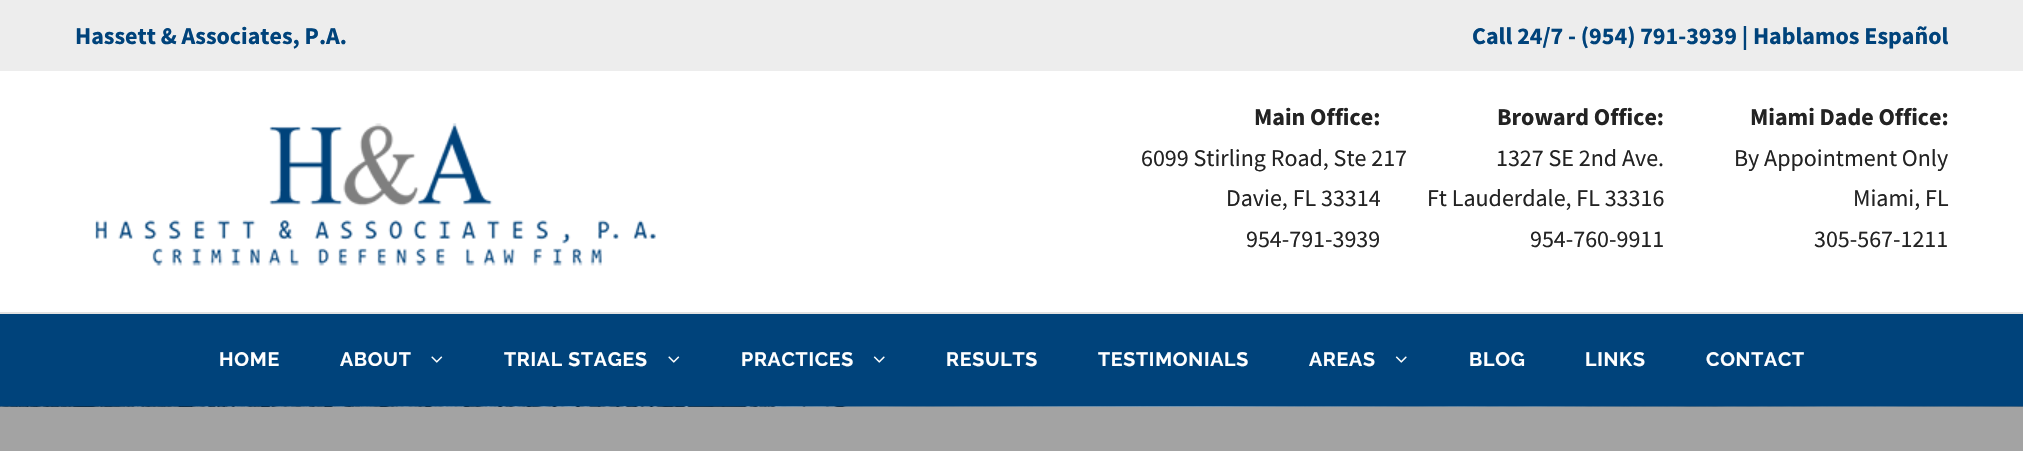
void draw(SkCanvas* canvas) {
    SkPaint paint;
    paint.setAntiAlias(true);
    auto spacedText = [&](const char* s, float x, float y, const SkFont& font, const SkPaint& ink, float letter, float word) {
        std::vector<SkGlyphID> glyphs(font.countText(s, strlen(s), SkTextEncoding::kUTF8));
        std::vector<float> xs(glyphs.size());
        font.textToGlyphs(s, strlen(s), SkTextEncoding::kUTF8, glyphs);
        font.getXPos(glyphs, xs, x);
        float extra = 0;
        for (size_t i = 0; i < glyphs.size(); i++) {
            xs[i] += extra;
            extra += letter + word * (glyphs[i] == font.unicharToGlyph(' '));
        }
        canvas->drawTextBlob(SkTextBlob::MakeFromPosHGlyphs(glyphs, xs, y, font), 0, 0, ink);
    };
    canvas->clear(0xFFFFFFFF);
    paint.setColor(0xFFEDEDED);
    canvas->drawRect(SkRect::MakeXYWH(0, 0, 2023, 71), paint);
    SkFont font1(fontMgr->matchFamilyStyle("Source Sans Pro", SkFontStyle::Bold()), 24);
    font1.setSubpixel(true);
    paint.setColor(0xFF00437B);
    canvas->drawString("Hassett & Associates, P.A.", 75, 44, font1, paint);
    canvas->drawString("Call 24/7 - (954) 791-3939 | Hablamos Español", 1472, 44, font1, paint);
    canvas->drawImageRect(SkImages::DeferredFromEncodedData(SkData::MakeFromFileName("img1.png")), SkRect::MakeXYWH(95, 123, 561, 143), SkSamplingOptions());
    paint.setColor(0xFF232323);
    canvas->drawString("Main Office:", 1254, 125, font1, paint);
    SkFont font2(fontMgr->matchFamilyStyle("Source Sans Pro", SkFontStyle::Normal()), 24);
    font2.setSubpixel(true);
    canvas->drawString("6099 Stirling Road, Ste 217", 1141, 166, font2, paint);
    canvas->drawString("Davie, FL 33314", 1226, 206, font2, paint);
    canvas->drawString("954-791-3939", 1246, 247, font2, paint);
    canvas->drawString("Broward Office:", 1497, 125, font1, paint);
    canvas->drawString("1327 SE 2nd Ave.", 1496, 166, font2, paint);
    canvas->drawString("Ft Lauderdale, FL 33316", 1427, 206, font2, paint);
    canvas->drawString("954-760-9911", 1530, 247, font2, paint);
    canvas->drawString("Miami Dade Office:", 1750, 125, font1, paint);
    canvas->drawString("By Appointment Only", 1734, 166, font2, paint);
    canvas->drawString("Miami, FL", 1853, 206, font2, paint);
    canvas->drawString("305-567-1211", 1814, 247, font2, paint);
    paint.setColor(0xFFE2E2E2);
    canvas->drawRect(SkRect::MakeXYWH(0, 312, 2023, 2), paint);
    paint.setColor(0xFF00437B);
    canvas->drawRect(SkRect::MakeXYWH(0, 314, 2023, 93), paint);
    SkFont font3(fontMgr->matchFamilyStyle("Raleway", SkFontStyle::Bold()), 19.5f);
    font3.setSubpixel(true);
    paint.setColor(0xFFFFFFFF);
    spacedText("HOME", 219, 366, font3, paint, 0.75f, 0);
    spacedText("ABOUT", 340, 366, font3, paint, 0.75f, 0);
    canvas->drawImageRect(SkImages::DeferredFromEncodedData(SkData::MakeFromFileName("img2.png")), SkRect::MakeXYWH(431, 356, 12, 7), SkSamplingOptions());
    spacedText("TRIAL STAGES", 504, 366, font3, paint, 0.75f, 0);
    canvas->drawImageRect(SkImages::DeferredFromEncodedData(SkData::MakeFromFileName("img2.png")), SkRect::MakeXYWH(668, 356, 12, 7), SkSamplingOptions());
    spacedText("PRACTICES", 741, 366, font3, paint, 0.75f, 0);
    canvas->drawImageRect(SkImages::DeferredFromEncodedData(SkData::MakeFromFileName("img3.png")), SkRect::MakeXYWH(873, 356, 12, 7), SkSamplingOptions());
    spacedText("RESULTS", 946, 366, font3, paint, 0.75f, 0);
    spacedText("TESTIMONIALS", 1098, 366, font3, paint, 0.75f, 0);
    spacedText("AREAS", 1309, 366, font3, paint, 0.75f, 0);
    canvas->drawImageRect(SkImages::DeferredFromEncodedData(SkData::MakeFromFileName("img3.png")), SkRect::MakeXYWH(1395, 356, 12, 7), SkSamplingOptions());
    spacedText("BLOG", 1469, 366, font3, paint, 0.75f, 0);
    spacedText("LINKS", 1585, 366, font3, paint, 0.75f, 0);
    spacedText("CONTACT", 1706, 366, font3, paint, 0.75f, 0);
    canvas->drawImageRect(SkImages::DeferredFromEncodedData(SkData::MakeFromFileName("img4.png")), SkRect::MakeXYWH(0, 406, 2023, 1), SkSamplingOptions());
    paint.setColor(0xFFA3A3A3);
    canvas->drawRect(SkRect::MakeXYWH(0, 407, 2023, 44), paint);
}
